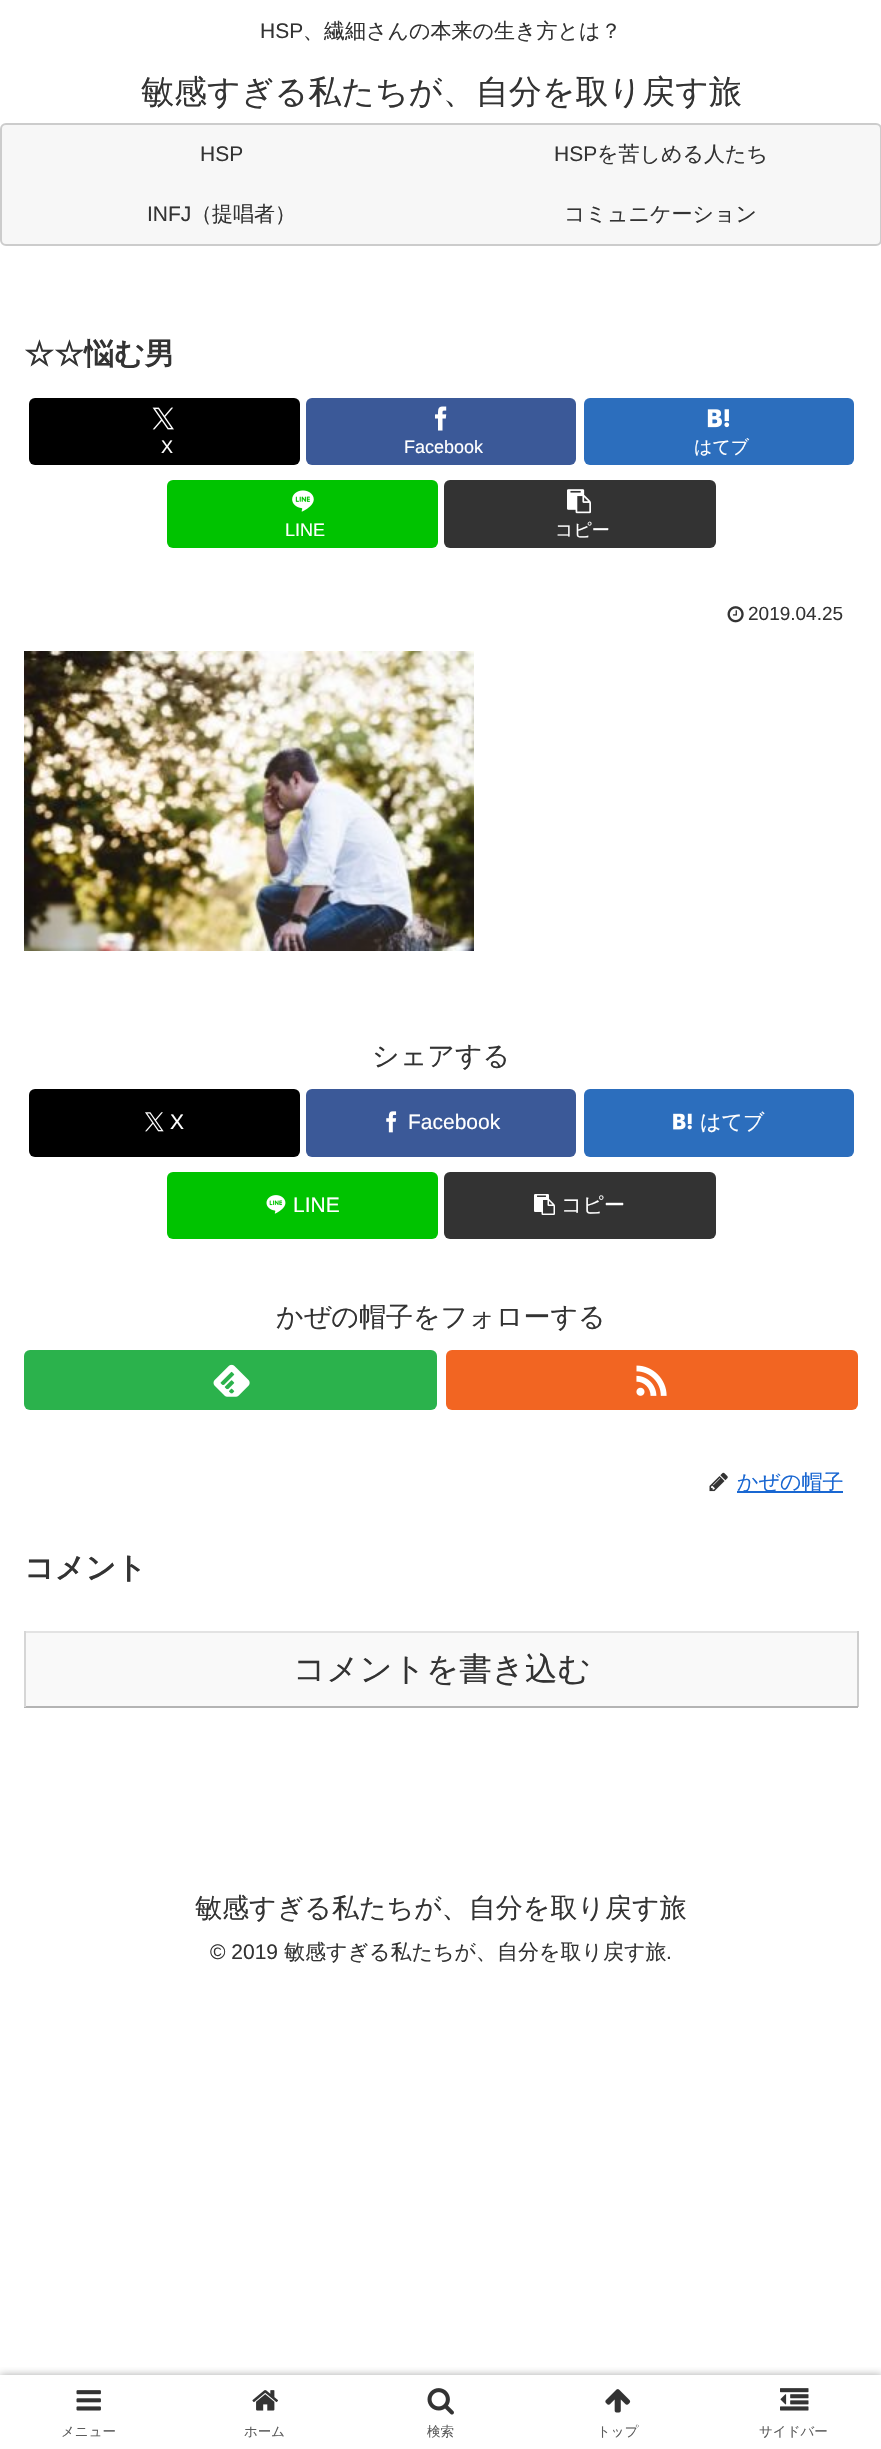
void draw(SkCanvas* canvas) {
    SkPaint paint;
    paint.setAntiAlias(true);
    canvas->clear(0xFFFFFFFF);
    SkFont font1(fontMgr->matchFamilyStyle("Liberation Sans", SkFontStyle::Normal()), 21);
    font1.setSubpixel(true);
    paint.setColor(0xFF333333);
    canvas->drawString("HSP", 260, 38, font1, paint);
    SkFont font2(fontMgr->matchFamilyStyle("WenQuanYi Zen Hei", SkFontStyle(500, SkFontStyle::kNormal_Width, SkFontStyle::kUpright_Slant)), 21);
    font2.setSubpixel(true);
    canvas->drawString("、繊細さんの本来の生き方とは？", 303, 38, font2, paint);
    SkFont font3(fontMgr->matchFamilyStyle("WenQuanYi Zen Hei", SkFontStyle(500, SkFontStyle::kNormal_Width, SkFontStyle::kUpright_Slant)), 33);
    font3.setSubpixel(true);
    canvas->drawString("敏感すぎる私たちが、自分を取り戻す旅", 141, 103, font3, paint);
    paint.setColor(0xFFF7F7F7);
    canvas->drawRoundRect(SkRect::MakeXYWH(1, 124, 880, 121), 5, 5, paint);
    paint.setStyle(SkPaint::kStroke_Style);
    paint.setStrokeWidth(2);
    paint.setColor(0xFFCCCCCC);
    canvas->drawRoundRect(SkRect::MakeXYWH(1, 124, 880, 121), 5, 5, paint);
    paint.setStyle(SkPaint::kFill_Style);
    paint.setColor(0xFF333333);
    canvas->drawString("HSP", 200, 161, font1, paint);
    canvas->drawString("HSP", 554, 161, font1, paint);
    canvas->drawString("を苦しめる人たち", 597, 161, font2, paint);
    canvas->drawString("INFJ", 147, 221, font1, paint);
    canvas->drawString("（提唱者）", 191, 221, font2, paint);
    canvas->drawString("コミュニケーション", 564, 221, font2, paint);
    SkFont font4(fontMgr->matchFamilyStyle("WenQuanYi Zen Hei", SkFontStyle::Bold()), 30);
    font4.setSubpixel(true);
    canvas->drawString("☆☆悩む男", 24, 364, font4, paint);
    paint.setColor(0xFF000000);
    canvas->drawRoundRect(SkRect::MakeXYWH(29, 398, 271, 67), 6, 6, paint);
    canvas->drawImageRect(SkImages::DeferredFromEncodedData(SkData::MakeFromFileName("img1.png")), SkRect::MakeXYWH(152, 407, 22, 23), SkSamplingOptions());
    SkFont font5(fontMgr->matchFamilyStyle("Liberation Sans", SkFontStyle::Normal()), 18);
    font5.setSubpixel(true);
    paint.setColor(0xFFFFFFFF);
    canvas->drawString("X", 161, 453, font5, paint);
    paint.setColor(0xFF3B5998);
    canvas->drawRoundRect(SkRect::MakeXYWH(306, 398, 270, 67), 6, 6, paint);
    canvas->drawImageRect(SkImages::DeferredFromEncodedData(SkData::MakeFromFileName("img2.png")), SkRect::MakeXYWH(435, 406, 12, 25), SkSamplingOptions());
    paint.setColor(0xFFFFFFFF);
    canvas->drawString("Facebook", 404, 453, font5, paint);
    paint.setColor(0xFF2C6EBD);
    canvas->drawRoundRect(SkRect::MakeXYWH(584, 398, 270, 67), 6, 6, paint);
    canvas->drawImageRect(SkImages::DeferredFromEncodedData(SkData::MakeFromFileName("img3.png")), SkRect::MakeXYWH(707, 409, 23, 19), SkSamplingOptions());
    SkFont font6(fontMgr->matchFamilyStyle("WenQuanYi Zen Hei", SkFontStyle(500, SkFontStyle::kNormal_Width, SkFontStyle::kUpright_Slant)), 18);
    font6.setSubpixel(true);
    paint.setColor(0xFFFFFFFF);
    canvas->drawString("はてブ", 694, 453, font6, paint);
    paint.setColor(0xFF00C300);
    canvas->drawRoundRect(SkRect::MakeXYWH(167, 480, 271, 68), 6, 6, paint);
    canvas->drawImageRect(SkImages::DeferredFromEncodedData(SkData::MakeFromFileName("img4.png")), SkRect::MakeXYWH(292, 490, 22, 22), SkSamplingOptions());
    paint.setColor(0xFFFFFFFF);
    canvas->drawString("LINE", 285, 536, font5, paint);
    paint.setColor(0xFF333333);
    canvas->drawRoundRect(SkRect::MakeXYWH(444, 480, 272, 68), 6, 6, paint);
    canvas->drawImageRect(SkImages::DeferredFromEncodedData(SkData::MakeFromFileName("img5.png")), SkRect::MakeXYWH(567, 489, 24, 25), SkSamplingOptions());
    paint.setColor(0xFFFFFFFF);
    canvas->drawString("コピー", 555, 536, font6, paint);
    canvas->drawImageRect(SkImages::DeferredFromEncodedData(SkData::MakeFromFileName("img6.png")), SkRect::MakeXYWH(727, 606, 17, 17), SkSamplingOptions());
    SkFont font7(fontMgr->matchFamilyStyle("Liberation Sans", SkFontStyle::Normal()), 19);
    font7.setSubpixel(true);
    paint.setColor(0xFF333333);
    canvas->drawString("2019.04.25", 748, 620, font7, paint);
    canvas->drawImageRect(SkImages::DeferredFromEncodedData(SkData::MakeFromFileName("img7.png")), SkRect::MakeXYWH(24, 651, 450, 300), SkSamplingOptions());
    SkFont font8(fontMgr->matchFamilyStyle("WenQuanYi Zen Hei", SkFontStyle(500, SkFontStyle::kNormal_Width, SkFontStyle::kUpright_Slant)), 27);
    font8.setSubpixel(true);
    canvas->drawString("シェアする", 372, 1065, font8, paint);
    paint.setColor(0xFF000000);
    canvas->drawRoundRect(SkRect::MakeXYWH(29, 1089, 271, 68), 6, 6, paint);
    canvas->drawImageRect(SkImages::DeferredFromEncodedData(SkData::MakeFromFileName("img8.png")), SkRect::MakeXYWH(145, 1112, 19, 20), SkSamplingOptions());
    paint.setColor(0xFFFFFFFF);
    canvas->drawString("X", 170, 1129, font1, paint);
    paint.setColor(0xFF3B5998);
    canvas->drawRoundRect(SkRect::MakeXYWH(306, 1089, 270, 68), 6, 6, paint);
    canvas->drawImageRect(SkImages::DeferredFromEncodedData(SkData::MakeFromFileName("img9.png")), SkRect::MakeXYWH(386, 1111, 11, 22), SkSamplingOptions());
    paint.setColor(0xFFFFFFFF);
    canvas->drawString("Facebook", 408, 1129, font1, paint);
    paint.setColor(0xFF2C6EBD);
    canvas->drawRoundRect(SkRect::MakeXYWH(584, 1089, 270, 68), 6, 6, paint);
    canvas->drawImageRect(SkImages::DeferredFromEncodedData(SkData::MakeFromFileName("img10.png")), SkRect::MakeXYWH(673, 1113, 19, 17), SkSamplingOptions());
    paint.setColor(0xFFFFFFFF);
    canvas->drawString("はてブ", 700, 1129, font2, paint);
    paint.setColor(0xFF00C300);
    canvas->drawRoundRect(SkRect::MakeXYWH(167, 1172, 271, 67), 6, 6, paint);
    canvas->drawImageRect(SkImages::DeferredFromEncodedData(SkData::MakeFromFileName("img11.png")), SkRect::MakeXYWH(266, 1195, 20, 19), SkSamplingOptions());
    paint.setColor(0xFFFFFFFF);
    canvas->drawString("LINE", 293, 1212, font1, paint);
    paint.setColor(0xFF333333);
    canvas->drawRoundRect(SkRect::MakeXYWH(444, 1172, 272, 67), 6, 6, paint);
    canvas->drawImageRect(SkImages::DeferredFromEncodedData(SkData::MakeFromFileName("img12.png")), SkRect::MakeXYWH(534, 1194, 21, 21), SkSamplingOptions());
    paint.setColor(0xFFFFFFFF);
    canvas->drawString("コピー", 561, 1212, font2, paint);
    paint.setColor(0xFF333333);
    canvas->drawString("かぜの帽子をフォローする", 276, 1326, font8, paint);
    paint.setColor(0xFF2BB24C);
    canvas->drawRoundRect(SkRect::MakeXYWH(24, 1350, 413, 60), 6, 6, paint);
    canvas->drawImageRect(SkImages::DeferredFromEncodedData(SkData::MakeFromFileName("img13.png")), SkRect::MakeXYWH(213, 1364, 37, 33), SkSamplingOptions());
    paint.setColor(0xFFF26522);
    canvas->drawRoundRect(SkRect::MakeXYWH(446, 1350, 412, 60), 6, 6, paint);
    canvas->drawImageRect(SkImages::DeferredFromEncodedData(SkData::MakeFromFileName("img14.png")), SkRect::MakeXYWH(636, 1365, 31, 31), SkSamplingOptions());
    canvas->drawImageRect(SkImages::DeferredFromEncodedData(SkData::MakeFromFileName("img15.png")), SkRect::MakeXYWH(709, 1472, 19, 20), SkSamplingOptions());
    paint.setColor(0xFF1967D2);
    canvas->drawRect(SkRect::MakeXYWH(737, 1491, 106, 2), paint);
    canvas->drawString("かぜの帽子", 737, 1489, font2, paint);
    paint.setColor(0xFF333333);
    canvas->drawString("コメント", 24, 1578, font4, paint);
    paint.setColor(0xFFF9F9F9);
    canvas->drawRect(SkRect::MakeXYWH(26, 1633, 831, 73), paint);
    paint.setColor(0xFFE3E3E3);
    canvas->drawRect(SkRect::MakeXYWH(24, 1631, 834, 2), paint);
    paint.setColor(0xFFCECECE);
    canvas->drawRect(SkRect::MakeXYWH(857, 1631, 2, 76), paint);
    paint.setColor(0xFFB4B4B4);
    canvas->drawRect(SkRect::MakeXYWH(24, 1706, 834, 2), paint);
    paint.setColor(0xFFD6D6D6);
    canvas->drawRect(SkRect::MakeXYWH(24, 1631, 2, 76), paint);
    SkFont font9(fontMgr->matchFamilyStyle("WenQuanYi Zen Hei", SkFontStyle(500, SkFontStyle::kNormal_Width, SkFontStyle::kUpright_Slant)), 32.5f);
    font9.setSubpixel(true);
    paint.setColor(0xFF333333);
    canvas->drawString("コメントを書き込む", 293, 1680, font9, paint);
    canvas->drawString("敏感すぎる私たちが、自分を取り戻す旅", 195, 1917, font8, paint);
    canvas->drawString("© 2019", 210, 1959, font1, paint);
    canvas->drawString("敏感すぎる私たちが、自分を取り戻す旅", 284, 1959, font2, paint);
    canvas->drawString(".", 666, 1959, font1, paint);
    canvas->save();
    canvas->clipRect(SkRect::MakeXYWH(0, 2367, 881, 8));
    paint.setColor(0xFFA9A9A9);
    paint.setMaskFilter(SkMaskFilter::MakeBlur(kNormal_SkBlurStyle, 4));
    canvas->drawRect(SkRect::MakeXYWH(0, 2375, 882, 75), paint);
    paint.setMaskFilter(nullptr);
    canvas->restore();
    canvas->drawImageRect(SkImages::DeferredFromEncodedData(SkData::MakeFromFileName("img16.png")), SkRect::MakeXYWH(76, 2390, 25, 21), SkSamplingOptions());
    SkFont font10(fontMgr->matchFamilyStyle("WenQuanYi Zen Hei", SkFontStyle(500, SkFontStyle::kNormal_Width, SkFontStyle::kUpright_Slant)), 13.5f);
    font10.setSubpixel(true);
    paint.setColor(0xFF5C5C5C);
    canvas->drawString("メニュー", 61, 2436, font10, paint);
    canvas->drawImageRect(SkImages::DeferredFromEncodedData(SkData::MakeFromFileName("img17.png")), SkRect::MakeXYWH(252, 2390, 26, 21), SkSamplingOptions());
    canvas->drawString("ホーム", 244, 2436, font10, paint);
    canvas->drawImageRect(SkImages::DeferredFromEncodedData(SkData::MakeFromFileName("img18.png")), SkRect::MakeXYWH(427, 2388, 27, 27), SkSamplingOptions());
    canvas->drawString("検索", 427, 2436, font10, paint);
    canvas->drawImageRect(SkImages::DeferredFromEncodedData(SkData::MakeFromFileName("img19.png")), SkRect::MakeXYWH(605, 2389, 26, 24), SkSamplingOptions());
    canvas->drawString("トップ", 597, 2436, font10, paint);
    canvas->drawImageRect(SkImages::DeferredFromEncodedData(SkData::MakeFromFileName("img20.png")), SkRect::MakeXYWH(780, 2388, 29, 23), SkSamplingOptions());
    canvas->drawString("サイドバー", 759, 2436, font10, paint);
}
